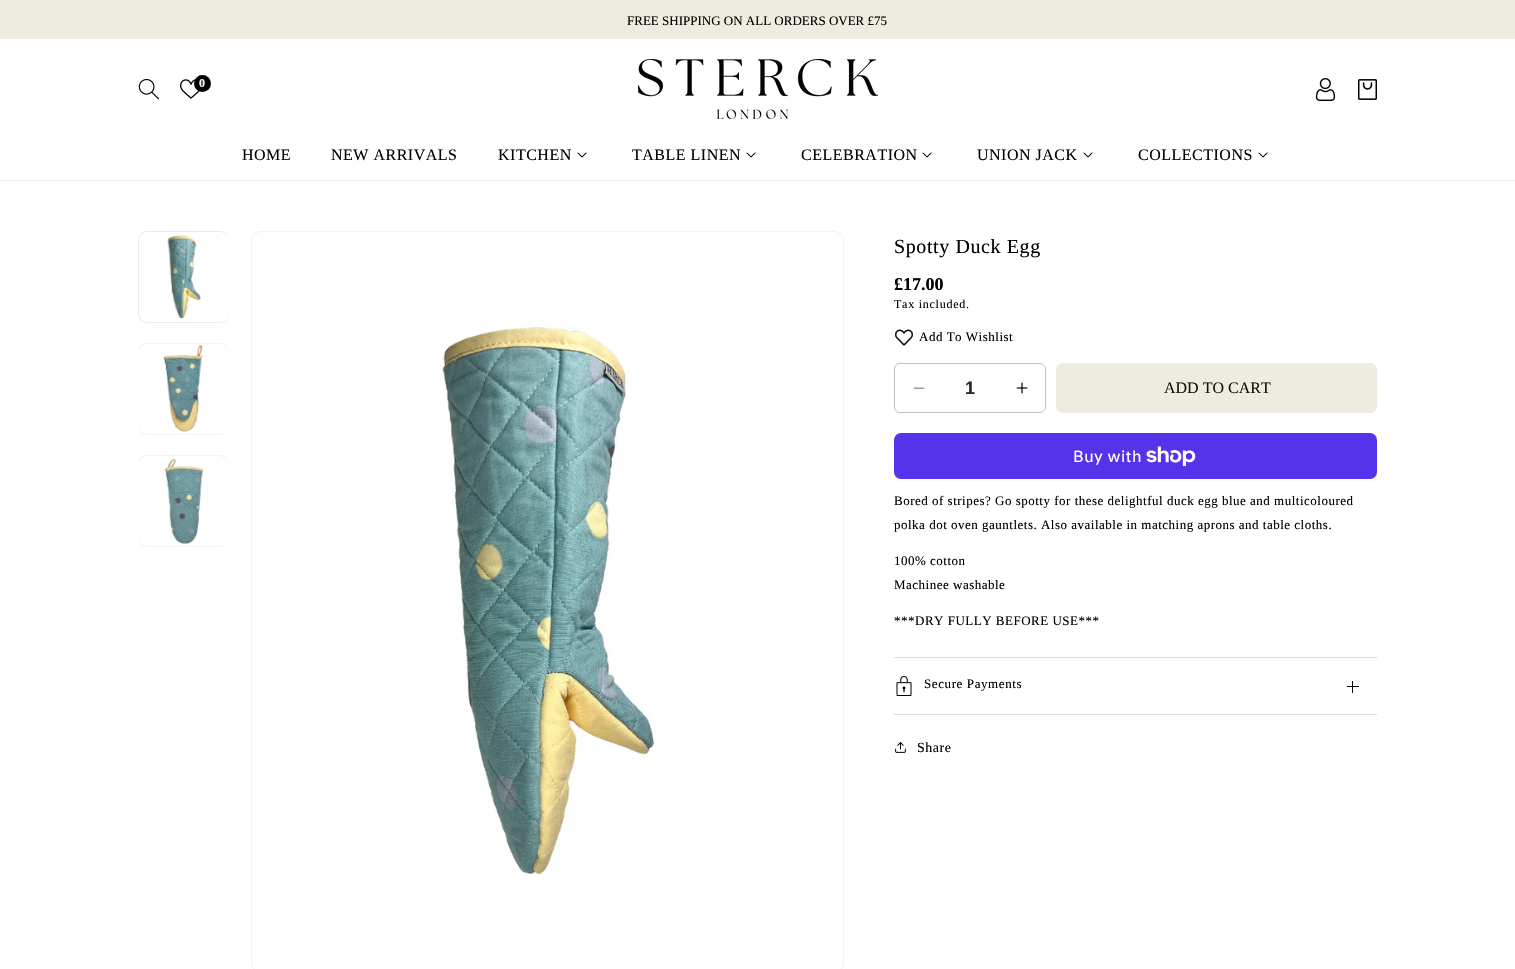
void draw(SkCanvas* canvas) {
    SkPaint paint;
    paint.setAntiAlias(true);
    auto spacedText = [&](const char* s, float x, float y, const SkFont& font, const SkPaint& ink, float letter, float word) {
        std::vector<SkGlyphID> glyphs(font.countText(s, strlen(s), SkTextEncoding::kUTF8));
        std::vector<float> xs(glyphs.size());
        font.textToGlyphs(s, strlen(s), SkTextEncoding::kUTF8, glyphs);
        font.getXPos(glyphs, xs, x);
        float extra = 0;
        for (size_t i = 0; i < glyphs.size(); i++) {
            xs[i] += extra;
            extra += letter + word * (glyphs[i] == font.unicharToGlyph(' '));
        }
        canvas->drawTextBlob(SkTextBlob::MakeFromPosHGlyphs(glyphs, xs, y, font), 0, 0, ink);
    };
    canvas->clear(0xFFFFFFFF);
    paint.setColor(0xFFEEECE1);
    canvas->drawRect(SkRect::MakeXYWH(0, 0, 1515, 39), paint);
    SkFont font1(fontMgr->matchFamilyStyle("Liberation Serif", SkFontStyle::Normal()), 13);
    font1.setSubpixel(true);
    paint.setColor(0xFF000000);
    canvas->drawString("FREE SHIPPING ON ALL ORDERS OVER £75", 627, 25, font1, paint);
    paint.setColor(0xFFEBEBEB);
    canvas->drawRect(SkRect::MakeXYWH(0, 180, 1515, 1), paint);
    canvas->drawImageRect(SkImages::DeferredFromEncodedData(SkData::MakeFromFileName("img1.png")), SkRect::MakeXYWH(138, 78, 21, 22), SkSamplingOptions());
    canvas->drawImageRect(SkImages::DeferredFromEncodedData(SkData::MakeFromFileName("img2.png")), SkRect::MakeXYWH(180, 79, 20, 20), SkSamplingOptions());
    paint.setColor(0xFF000000);
    canvas->drawCircle(202.5f, 83.5f, 8.5f, paint);
    SkFont font2(fontMgr->matchFamilyStyle("Liberation Serif", SkFontStyle::Bold()), 12);
    font2.setSubpixel(true);
    paint.setColor(0xFFFFFFFF);
    spacedText("0", 199, 87, font2, paint, 0.5f, 0);
    canvas->drawImageRect(SkImages::DeferredFromEncodedData(SkData::MakeFromFileName("img3.png")), SkRect::MakeXYWH(638, 59, 240, 60), SkSamplingOptions());
    canvas->drawImageRect(SkImages::DeferredFromEncodedData(SkData::MakeFromFileName("img4.png")), SkRect::MakeXYWH(1315, 78, 21, 23), SkSamplingOptions());
    canvas->drawImageRect(SkImages::DeferredFromEncodedData(SkData::MakeFromFileName("img5.png")), SkRect::MakeXYWH(1358, 79, 19, 21), SkSamplingOptions());
    SkFont font3(fontMgr->matchFamilyStyle("Liberation Serif", SkFontStyle::Normal()), 16);
    font3.setSubpixel(true);
    paint.setColor(0xFF000000);
    spacedText("HOME", 242, 160, font3, paint, 0.5f, 0);
    spacedText("NEW ARRIVALS", 331, 160, font3, paint, 0.5f, 0);
    spacedText("KITCHEN", 498, 160, font3, paint, 0.5f, 0);
    canvas->drawImageRect(SkImages::DeferredFromEncodedData(SkData::MakeFromFileName("img6.png")), SkRect::MakeXYWH(577, 152, 10, 6), SkSamplingOptions());
    spacedText("TABLE LINEN", 632, 160, font3, paint, 0.5f, 0);
    canvas->drawImageRect(SkImages::DeferredFromEncodedData(SkData::MakeFromFileName("img6.png")), SkRect::MakeXYWH(746, 152, 10, 6), SkSamplingOptions());
    spacedText("CELEBRATION", 801, 160, font3, paint, 0.5f, 0);
    canvas->drawImageRect(SkImages::DeferredFromEncodedData(SkData::MakeFromFileName("img6.png")), SkRect::MakeXYWH(922, 152, 10, 6), SkSamplingOptions());
    spacedText("UNION JACK", 977, 160, font3, paint, 0.5f, 0);
    canvas->drawImageRect(SkImages::DeferredFromEncodedData(SkData::MakeFromFileName("img6.png")), SkRect::MakeXYWH(1083, 152, 10, 6), SkSamplingOptions());
    spacedText("COLLECTIONS", 1138, 160, font3, paint, 0.5f, 0);
    canvas->drawImageRect(SkImages::DeferredFromEncodedData(SkData::MakeFromFileName("img6.png")), SkRect::MakeXYWH(1258, 152, 10, 6), SkSamplingOptions());
    paint.setColor(0xFFEEECE1);
    canvas->drawPath(SkPathBuilder(SkPathFillType::kEvenOdd).moveTo(221, 231).cubicTo(226, 232, 229, 236, 229, 241).lineTo(229, 313).cubicTo(229, 319, 225, 323, 219, 323).lineTo(148, 323).cubicTo(142, 323, 138, 319, 138, 313).lineTo(138, 241).cubicTo(138, 236, 141, 232, 146, 231).close().moveTo(148, 232).cubicTo(143, 232, 139, 236, 139, 241).lineTo(139, 313).cubicTo(139, 318, 143, 322, 148, 322).lineTo(219, 322).cubicTo(224, 322, 228, 318, 228, 313).lineTo(228, 241).cubicTo(228, 236, 224, 232, 219, 232).close().detach(), paint);
    canvas->drawImageRect(SkImages::DeferredFromEncodedData(SkData::MakeFromFileName("img7.png")), SkRect::MakeXYWH(139, 232, 90, 90), SkSamplingOptions());
    paint.setColor(0xFFF2F2F2);
    canvas->drawPath(SkPathBuilder(SkPathFillType::kEvenOdd).moveTo(147, 343).lineTo(219, 343).cubicTo(225, 343, 229, 347, 229, 353).lineTo(229, 425).cubicTo(229, 431, 225, 435, 219, 435).lineTo(147, 435).cubicTo(143, 435, 139, 432, 138, 428).lineTo(138, 350).cubicTo(139, 346, 143, 343, 147, 343).close().moveTo(147, 344).cubicTo(142, 344, 138, 348, 138, 353).lineTo(138, 425).cubicTo(138, 430, 142, 434, 147, 434).lineTo(219, 434).cubicTo(224, 434, 228, 430, 228, 425).lineTo(228, 353).cubicTo(228, 348, 224, 344, 219, 344).close().detach(), paint);
    canvas->drawImageRect(SkImages::DeferredFromEncodedData(SkData::MakeFromFileName("img8.png")), SkRect::MakeXYWH(163, 344, 66, 89), SkSamplingOptions());
    canvas->drawPath(SkPathBuilder(SkPathFillType::kEvenOdd).moveTo(147, 455).lineTo(219, 455).cubicTo(225, 455, 229, 459, 229, 465).lineTo(229, 537).cubicTo(229, 543, 225, 547, 219, 547).lineTo(147, 547).cubicTo(143, 547, 139, 544, 138, 540).lineTo(138, 462).cubicTo(139, 458, 143, 455, 147, 455).close().moveTo(147, 456).cubicTo(142, 456, 138, 460, 138, 465).lineTo(138, 537).cubicTo(138, 542, 142, 546, 147, 546).lineTo(219, 546).cubicTo(224, 546, 228, 542, 228, 537).lineTo(228, 465).cubicTo(228, 460, 224, 456, 219, 456).close().detach(), paint);
    canvas->drawImageRect(SkImages::DeferredFromEncodedData(SkData::MakeFromFileName("img9.png")), SkRect::MakeXYWH(164, 457, 65, 88), SkSamplingOptions());
    paint.setStyle(SkPaint::kStroke_Style);
    paint.setStrokeWidth(1);
    canvas->drawRoundRect(SkRect::MakeXYWH(251.5f, 231.5f, 592, 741), 9.5f, 9.5f, paint);
    canvas->drawImageRect(SkImages::DeferredFromEncodedData(SkData::MakeFromFileName("img10.png")), SkRect::MakeXYWH(441, 326, 216, 550), SkSamplingOptions());
    SkFont font4(fontMgr->matchFamilyStyle("Liberation Serif", SkFontStyle::Normal()), 20);
    font4.setSubpixel(true);
    paint.setStyle(SkPaint::kFill_Style);
    paint.setColor(0xFF000000);
    spacedText("Spotty Duck Egg", 894, 253, font4, paint, 0.6f, 0);
    SkFont font5(fontMgr->matchFamilyStyle("Liberation Serif", SkFontStyle::Bold()), 18);
    font5.setSubpixel(true);
    canvas->drawString("£17.00", 894, 290, font5, paint);
    SkFont font6(fontMgr->matchFamilyStyle("Liberation Serif", SkFontStyle::Normal()), 12);
    font6.setSubpixel(true);
    spacedText("Tax included.", 894, 308, font6, paint, 0.75f, 0);
    canvas->drawImageRect(SkImages::DeferredFromEncodedData(SkData::MakeFromFileName("img11.png")), SkRect::MakeXYWH(894, 329, 19, 17), SkSamplingOptions());
    spacedText("Add To Wishlist", 919, 341, font1, paint, 0.5f, 0);
    paint.setStyle(SkPaint::kStroke_Style);
    paint.setColor(0xFFC3C3C3);
    canvas->drawRoundRect(SkRect::MakeXYWH(894.5f, 363.5f, 151, 49), 5.5f, 5.5f, paint);
    canvas->drawImageRect(SkImages::DeferredFromEncodedData(SkData::MakeFromFileName("img12.png")), SkRect::MakeXYWH(913, 387, 12, 2), SkSamplingOptions());
    SkFont font7(fontMgr->matchFamilyStyle("Liberation Sans", SkFontStyle::Bold()), 18);
    font7.setSubpixel(true);
    paint.setStyle(SkPaint::kFill_Style);
    paint.setColor(0xFF262626);
    canvas->drawString("1", 965, 394, font7, paint);
    canvas->drawImageRect(SkImages::DeferredFromEncodedData(SkData::MakeFromFileName("img13.png")), SkRect::MakeXYWH(1016, 382, 12, 12), SkSamplingOptions());
    paint.setColor(0xFFEEECE1);
    canvas->drawRoundRect(SkRect::MakeXYWH(1056, 363, 321, 50), 7, 7, paint);
    paint.setColor(0xFF121212);
    canvas->drawString("ADD TO CART", 1164, 393, font3, paint);
    paint.setColor(0xFF5433EB);
    canvas->drawRoundRect(SkRect::MakeXYWH(894, 433, 483, 46), 7, 7, paint);
    SkFont font8(fontMgr->matchFamilyStyle("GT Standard", SkFontStyle::Normal()), 16);
    font8.setSubpixel(true);
    paint.setColor(0xFFFFFFFF);
    spacedText("Buy with", 1073, 462, font8, paint, 0.5f, 0);
    canvas->drawImageRect(SkImages::DeferredFromEncodedData(SkData::MakeFromFileName("img14.png")), SkRect::MakeXYWH(1146, 446, 50, 20), SkSamplingOptions());
    paint.setColor(0xFF000000);
    spacedText("Bored of stripes? Go spotty for these delightful duck egg blue and multicoloured", 894, 505, font1, paint, 0.5f, 0);
    spacedText("polka dot oven gauntlets. Also available in matching aprons and table cloths.", 894, 529, font1, paint, 0.5f, 0);
    spacedText("100% cotton", 894, 565, font1, paint, 0.5f, 0);
    spacedText("Machinee washable", 894, 589, font1, paint, 0.5f, 0);
    spacedText("***DRY FULLY BEFORE USE***", 894, 625, font1, paint, 0.5f, 0);
    paint.setColor(0xFFDDDDDD);
    canvas->drawRect(SkRect::MakeXYWH(894, 657, 483, 1), paint);
    canvas->drawRect(SkRect::MakeXYWH(894, 714, 483, 1), paint);
    canvas->drawImageRect(SkImages::DeferredFromEncodedData(SkData::MakeFromFileName("img15.png")), SkRect::MakeXYWH(896, 676, 16, 20), SkSamplingOptions());
    paint.setColor(0xFF000000);
    spacedText("Secure Payments", 924, 688, font1, paint, 0.6f, 0);
    canvas->drawRect(SkRect::MakeXYWH(1352, 681, 1, 12), paint);
    canvas->drawRect(SkRect::MakeXYWH(1347, 686, 12, 1), paint);
    canvas->drawImageRect(SkImages::DeferredFromEncodedData(SkData::MakeFromFileName("img16.png")), SkRect::MakeXYWH(895, 742, 11, 11), SkSamplingOptions());
    SkFont font9(fontMgr->matchFamilyStyle("Liberation Serif", SkFontStyle::Normal()), 14);
    font9.setSubpixel(true);
    spacedText("Share", 917, 752, font9, paint, 0.5f, 0);
}
